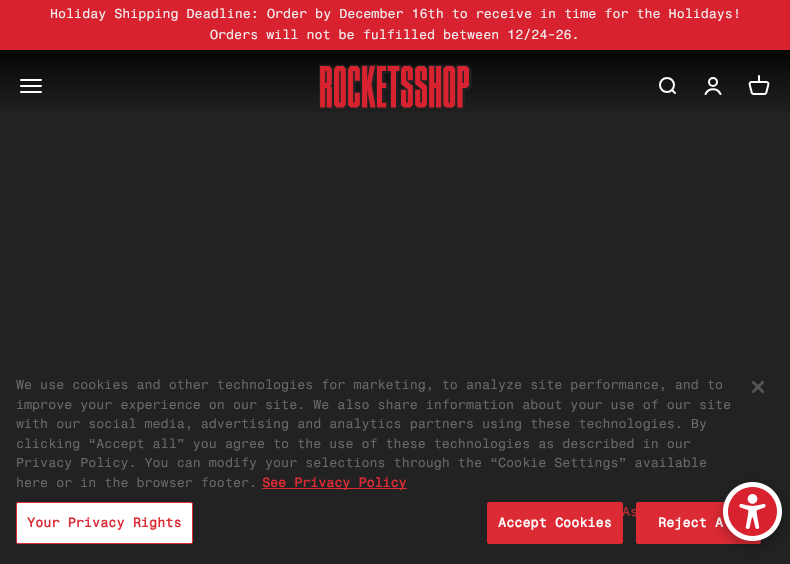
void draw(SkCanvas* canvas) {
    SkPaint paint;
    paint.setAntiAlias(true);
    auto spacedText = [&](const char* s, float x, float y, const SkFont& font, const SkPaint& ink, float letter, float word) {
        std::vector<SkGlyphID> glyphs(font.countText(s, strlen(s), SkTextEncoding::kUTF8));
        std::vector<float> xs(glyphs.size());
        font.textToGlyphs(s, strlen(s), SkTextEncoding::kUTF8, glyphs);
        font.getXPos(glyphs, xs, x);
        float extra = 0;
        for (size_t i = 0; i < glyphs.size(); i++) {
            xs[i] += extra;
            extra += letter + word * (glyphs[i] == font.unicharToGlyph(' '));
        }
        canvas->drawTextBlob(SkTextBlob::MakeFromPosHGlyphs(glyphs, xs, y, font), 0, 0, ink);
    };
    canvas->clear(0xFF222222);
    paint.setColor(0xFFD8222F);
    canvas->drawRect(SkRect::MakeXYWH(0, 0, 790, 50), paint);
    SkFont font1(fontMgr->matchFamilyStyle("Fragment Mono", SkFontStyle::Normal()), 13);
    font1.setSubpixel(true);
    paint.setColor(0xFFF2F2F2);
    canvas->drawString("Holiday Shipping Deadline: Order by December 16th to receive in time for the Holidays!", 50, 18, font1, paint);
    canvas->drawString("Orders will not be fulfilled between 12/24-26.", 210, 39, font1, paint);
    {
        const SkColor colors[] = {0xFF070707, 0xFF111111, 0xFF222222};
        const float stops[] = {0.05f, 0.35f, 0.95f};
        const SkPoint ends[] = {{395, 50}, {395, 123}};
        paint.setShader(SkGradientShader::MakeLinear(ends, colors, stops, 3, SkTileMode::kClamp));
        paint.setAlpha(255);
    }
    canvas->drawRect(SkRect::MakeXYWH(0, 50, 790, 63), paint);
    paint.setStyle(SkPaint::kStroke_Style);
    paint.setStrokeWidth(2);
    paint.setStrokeCap(SkPaint::kRound_Cap);
    paint.setShader(nullptr);
    paint.setColor(0xFFFFFFFF);
    canvas->drawPath(SkPathBuilder().moveTo(21, 80).lineTo(41, 80).moveTo(21, 86).lineTo(41, 86).moveTo(21, 92).lineTo(41, 92).detach(), paint);
    canvas->drawImageRect(SkImages::DeferredFromEncodedData(SkData::MakeFromFileName("img1.png")), SkRect::MakeXYWH(319, 64, 153, 45), SkSamplingOptions());
    paint.setStrokeCap(SkPaint::kButt_Cap);
    canvas->drawCircle(667, 85, 7, paint);
    paint.setStrokeCap(SkPaint::kRound_Cap);
    paint.setStrokeJoin(SkPaint::kRound_Join);
    canvas->drawPath(SkPathBuilder().moveTo(672, 90).lineTo(675, 93).detach(), paint);
    paint.setStrokeCap(SkPaint::kButt_Cap);
    paint.setStrokeJoin(SkPaint::kMiter_Join);
    canvas->drawCircle(713, 82, 4, paint);
    paint.setStrokeCap(SkPaint::kRound_Cap);
    canvas->drawPath(SkPathBuilder().moveTo(705.5f, 94).cubicTo(708.5f, 87.5f, 717.5f, 87.5f, 720.5f, 94).detach(), paint);
    canvas->drawImageRect(SkImages::DeferredFromEncodedData(SkData::MakeFromFileName("img2.png")), SkRect::MakeXYWH(748, 75, 22, 20), SkSamplingOptions());
    paint.setStyle(SkPaint::kFill_Style);
    paint.setColor(0xFF696969);
    canvas->drawString("We use cookies and other technologies for marketing, to analyze site performance, and to", 16, 389, font1, paint);
    canvas->drawString("improve your experience on our site. We also share information about your use of our site", 16, 409, font1, paint);
    canvas->drawString("with our social media, advertising and analytics partners using these technologies. By", 16, 428, font1, paint);
    canvas->drawString("clicking “Accept all” you agree to the use of these technologies as described in our", 16, 448, font1, paint);
    canvas->drawString("Privacy Policy. You can modify your selections through the “Cookie Settings” available", 16, 467, font1, paint);
    canvas->drawString("here or in the browser footer.", 16, 487, font1, paint);
    paint.setColor(0xFFDD2B35);
    canvas->drawRect(SkRect::MakeXYWH(262, 488, 145, 1), paint);
    SkFont font2(fontMgr->matchFamilyStyle("Fragment Mono", SkFontStyle::Bold()), 13);
    font2.setSubpixel(true);
    canvas->drawString("See Privacy Policy", 262, 487, font2, paint);
    paint.setColor(0xFFFFFFFF);
    canvas->drawRoundRect(SkRect::MakeXYWH(16.5f, 502.5f, 176, 41), 1.5f, 1.5f, paint);
    paint.setStyle(SkPaint::kStroke_Style);
    paint.setStrokeWidth(1);
    paint.setStrokeCap(SkPaint::kButt_Cap);
    paint.setColor(0xFFDD2B35);
    canvas->drawRoundRect(SkRect::MakeXYWH(16.5f, 502.5f, 176, 41), 1.5f, 1.5f, paint);
    paint.setStyle(SkPaint::kFill_Style);
    spacedText("Your Privacy Rights", 27, 527, font2, paint, 0.1f, 0);
    canvas->drawRoundRect(SkRect::MakeXYWH(487.5f, 502.5f, 135, 41), 1.5f, 1.5f, paint);
    paint.setStyle(SkPaint::kStroke_Style);
    canvas->drawRoundRect(SkRect::MakeXYWH(487.5f, 502.5f, 135, 41), 1.5f, 1.5f, paint);
    paint.setStyle(SkPaint::kFill_Style);
    paint.setColor(0xFFFFFFFF);
    spacedText("Accept Cookies", 498, 527, font2, paint, 0.1f, 0);
    paint.setColor(0xFFDD2B35);
    canvas->drawRoundRect(SkRect::MakeXYWH(636.5f, 502.5f, 124, 41), 1.5f, 1.5f, paint);
    paint.setStyle(SkPaint::kStroke_Style);
    canvas->drawRoundRect(SkRect::MakeXYWH(636.5f, 502.5f, 124, 41), 1.5f, 1.5f, paint);
    paint.setStyle(SkPaint::kFill_Style);
    paint.setColor(0xFFFFFFFF);
    spacedText("Reject A", 658, 527, font2, paint, 0.1f, 0);
    canvas->drawImageRect(SkImages::DeferredFromEncodedData(SkData::MakeFromFileName("img3.png")), SkRect::MakeXYWH(752, 381, 12, 12), SkSamplingOptions());
    paint.setColor(0xFFCC2A33);
    canvas->drawString("As", 622, 516, font1, paint);
    paint.setColor(0x4D000000);
    paint.setMaskFilter(SkMaskFilter::MakeBlur(kNormal_SkBlurStyle, 7.5f));
    canvas->drawRoundRect(SkRect::MakeXYWH(723, 487, 59, 59), 29.5f, 29.5f, paint);
    paint.setMaskFilter(nullptr);
    canvas->drawImageRect(SkImages::DeferredFromEncodedData(SkData::MakeFromFileName("img4.png")), SkRect::MakeXYWH(723, 482, 59, 59), SkSamplingOptions());
}
